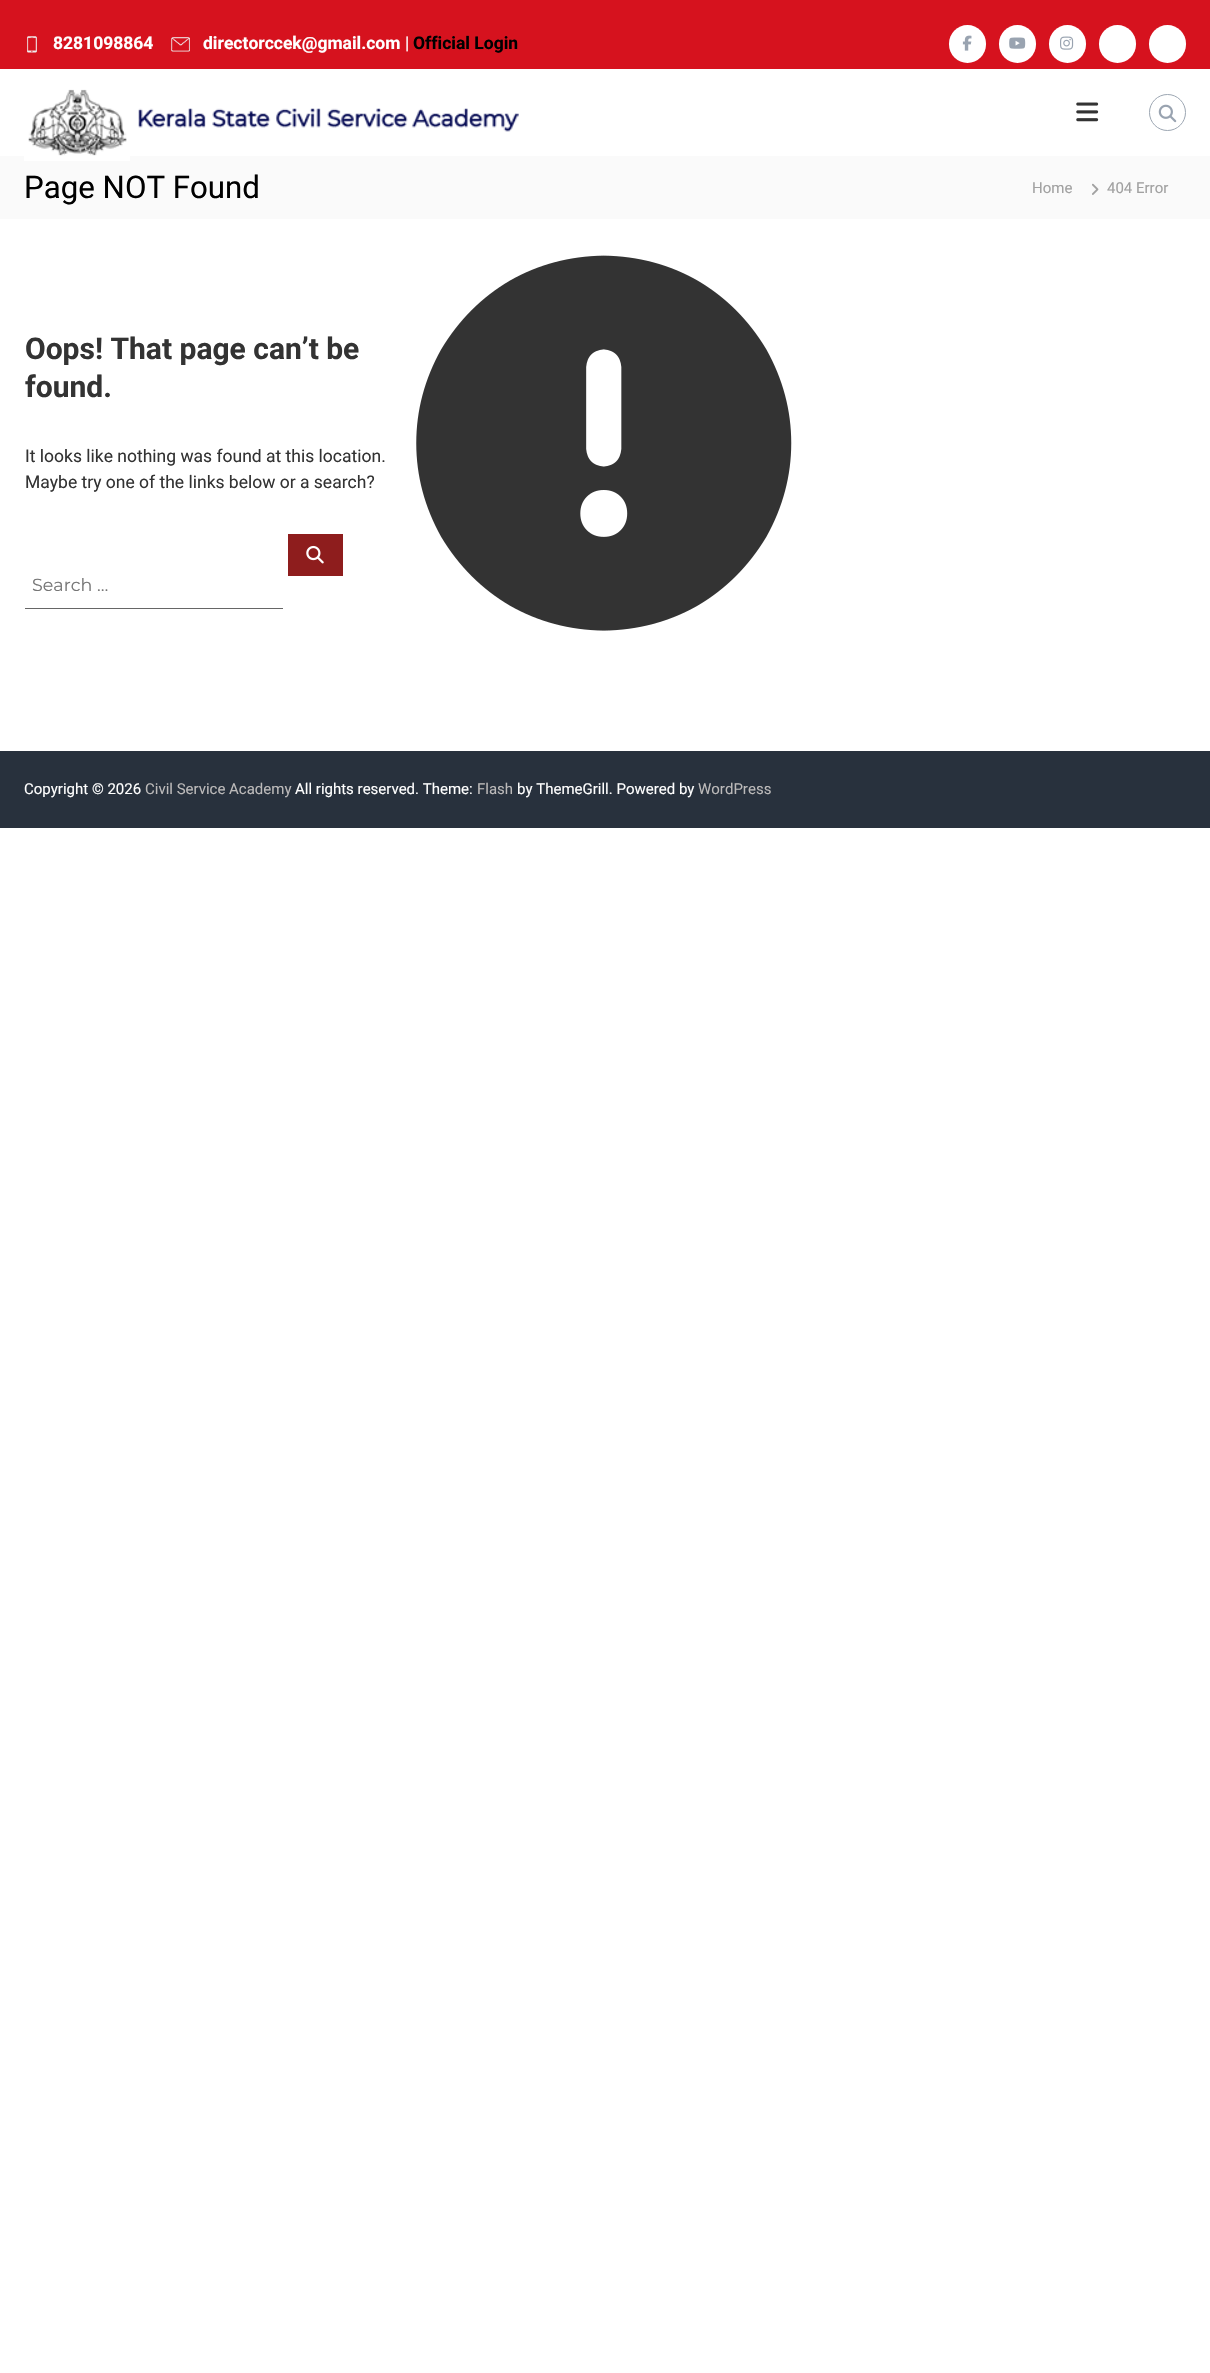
void draw(SkCanvas* canvas) {
    SkPaint paint;
    paint.setAntiAlias(true);
    canvas->clear(0xFFFFFFFF);
    paint.setColor(0xFFD6121E);
    canvas->drawRect(SkRect::MakeXYWH(0, 0, 1210, 69), paint);
    canvas->drawImageRect(SkImages::DeferredFromEncodedData(SkData::MakeFromFileName("img1.png")), SkRect::MakeXYWH(27, 36, 10, 17), SkSamplingOptions());
    SkFont font1(fontMgr->matchFamilyStyle("Roboto", SkFontStyle::Bold()), 17.5f);
    font1.setSubpixel(true);
    paint.setColor(0xFFFFFFFF);
    canvas->drawString("8281098864", 53, 49, font1, paint);
    canvas->drawImageRect(SkImages::DeferredFromEncodedData(SkData::MakeFromFileName("img2.png")), SkRect::MakeXYWH(171, 37, 19, 15), SkSamplingOptions());
    canvas->drawString("directorccek@gmail.com", 203, 49, font1, paint);
    SkFont font2(fontMgr->matchFamilyStyle("Roboto", SkFontStyle::Normal()), 17.5f);
    font2.setSubpixel(true);
    canvas->drawString("|", 405, 49, font2, paint);
    paint.setColor(0xFF000000);
    canvas->drawString("Official Login", 413, 49, font1, paint);
    paint.setColor(0xFFFFFFFF);
    canvas->drawRoundRect(SkRect::MakeXYWH(949, 25, 37, 38), 18.5f, 18.5f, paint);
    canvas->drawImageRect(SkImages::DeferredFromEncodedData(SkData::MakeFromFileName("img3.png")), SkRect::MakeXYWH(962, 35, 10, 16), SkSamplingOptions());
    canvas->drawRoundRect(SkRect::MakeXYWH(999, 25, 37, 38), 18.5f, 18.5f, paint);
    canvas->drawImageRect(SkImages::DeferredFromEncodedData(SkData::MakeFromFileName("img4.png")), SkRect::MakeXYWH(1009, 37, 17, 12), SkSamplingOptions());
    canvas->drawRoundRect(SkRect::MakeXYWH(1049, 25, 37, 38), 18.5f, 18.5f, paint);
    canvas->drawImageRect(SkImages::DeferredFromEncodedData(SkData::MakeFromFileName("img5.png")), SkRect::MakeXYWH(1060, 36, 14, 14), SkSamplingOptions());
    canvas->drawRoundRect(SkRect::MakeXYWH(1099, 25, 37, 38), 18.5f, 18.5f, paint);
    canvas->drawRoundRect(SkRect::MakeXYWH(1149, 25, 37, 38), 18.5f, 18.5f, paint);
    canvas->drawImageRect(SkImages::DeferredFromEncodedData(SkData::MakeFromFileName("img6.png")), SkRect::MakeXYWH(138, 108, 381, 24), SkSamplingOptions());
    paint.setColor(0xFFFAFAFA);
    canvas->drawRect(SkRect::MakeXYWH(0, 156, 1210, 63), paint);
    canvas->drawImageRect(SkImages::DeferredFromEncodedData(SkData::MakeFromFileName("img7.png")), SkRect::MakeXYWH(24, 89, 106, 72), SkSamplingOptions());
    canvas->drawImageRect(SkImages::DeferredFromEncodedData(SkData::MakeFromFileName("img8.png")), SkRect::MakeXYWH(1076, 102, 23, 20), SkSamplingOptions());
    paint.setStyle(SkPaint::kStroke_Style);
    paint.setStrokeWidth(1);
    paint.setColor(0xFF9CA6B2);
    canvas->drawCircle(1167.5f, 112.5f, 18, paint);
    canvas->drawImageRect(SkImages::DeferredFromEncodedData(SkData::MakeFromFileName("img9.png")), SkRect::MakeXYWH(1158, 104, 19, 19), SkSamplingOptions());
    SkFont font3(fontMgr->matchFamilyStyle("Roboto", SkFontStyle::Normal()), 31.25f);
    font3.setSubpixel(true);
    paint.setStyle(SkPaint::kFill_Style);
    paint.setColor(0xFF000000);
    canvas->drawString("Page NOT Found", 24, 198, font3, paint);
    SkFont font4(fontMgr->matchFamilyStyle("Roboto", SkFontStyle::Normal()), 15);
    font4.setSubpixel(true);
    paint.setColor(0xFFA1A1A1);
    canvas->drawString("Home", 1032, 193, font4, paint);
    canvas->drawImageRect(SkImages::DeferredFromEncodedData(SkData::MakeFromFileName("img10.png")), SkRect::MakeXYWH(1092, 183, 7, 12), SkSamplingOptions());
    canvas->drawString("404 Error", 1107, 193, font4, paint);
    SkFont font5(fontMgr->matchFamilyStyle("Roboto", SkFontStyle::Bold()), 30);
    font5.setSubpixel(true);
    paint.setColor(0xFF333333);
    canvas->drawString("Oops! That page can’t be", 25, 359, font5, paint);
    canvas->drawString("found.", 25, 397, font5, paint);
    canvas->drawString("It looks like nothing was found at this location.", 25, 462, font2, paint);
    canvas->drawString("Maybe try one of the links below or a search?", 25, 488, font2, paint);
    paint.setColor(0xFF8E1D1D);
    canvas->drawRect(SkRect::MakeXYWH(288, 534, 55, 42), paint);
    canvas->drawImageRect(SkImages::DeferredFromEncodedData(SkData::MakeFromFileName("img11.png")), SkRect::MakeXYWH(306, 545, 18, 19), SkSamplingOptions());
    paint.setColor(0xFF666666);
    canvas->drawRect(SkRect::MakeXYWH(25, 608, 258, 1), paint);
    SkFont font6(fontMgr->matchFamilyStyle("Montserrat", SkFontStyle::Normal()), 17.5f);
    font6.setSubpixel(true);
    paint.setColor(0xFF757575);
    canvas->drawString("Search …", 32, 591, font6, paint);
    canvas->drawImageRect(SkImages::DeferredFromEncodedData(SkData::MakeFromFileName("img12.png")), SkRect::MakeXYWH(416, 255, 376, 376), SkSamplingOptions());
    paint.setColor(0xFF28313D);
    canvas->drawRect(SkRect::MakeXYWH(0, 751, 1210, 77), paint);
    paint.setColor(0xFFFFFFFF);
    canvas->drawString("Copyright © 2026", 24, 794, font4, paint);
    paint.setColor(0xFFBCBABA);
    canvas->drawString("Civil Service Academy", 145, 794, font4, paint);
    paint.setColor(0xFFFFFFFF);
    canvas->drawString("All rights reserved. Theme:", 295, 794, font4, paint);
    paint.setColor(0xFFBCBABA);
    canvas->drawString("Flash", 477, 794, font4, paint);
    paint.setColor(0xFFFFFFFF);
    canvas->drawString("by ThemeGrill. Powered by", 517, 794, font4, paint);
    paint.setColor(0xFFBCBABA);
    canvas->drawString("WordPress", 698, 794, font4, paint);
}
